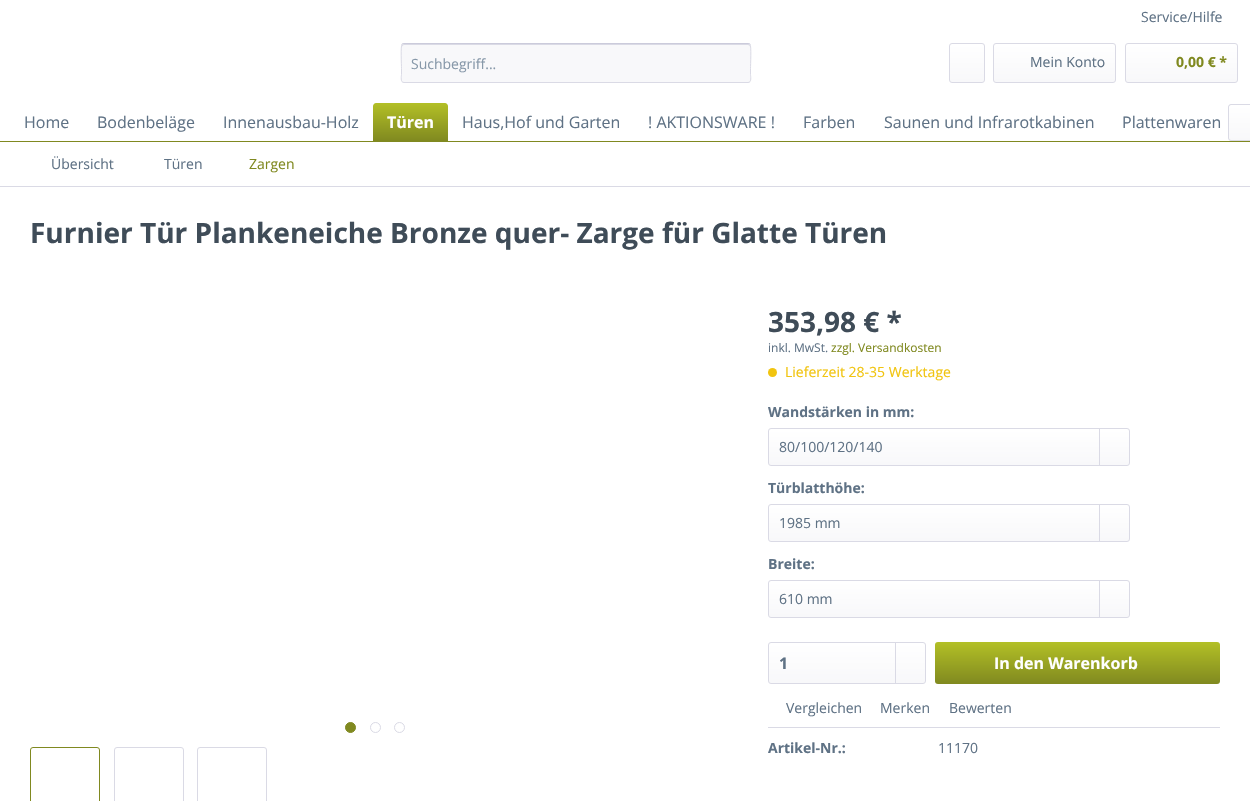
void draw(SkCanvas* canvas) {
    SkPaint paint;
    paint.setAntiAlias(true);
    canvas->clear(0xFFFFFFFF);
    SkFont font1(fontMgr->matchFamilyStyle("Open Sans", SkFontStyle::Normal()), 14);
    font1.setSubpixel(true);
    paint.setColor(0xFF5F7285);
    canvas->drawString("Service/Hilfe", 1141, 22, font1, paint);
    paint.setColor(0xFFF8F8FA);
    canvas->drawRoundRect(SkRect::MakeXYWH(401, 43, 350, 40), 3, 3, paint);
    paint.setColor(0xFFDADAE5);
    canvas->drawPath(SkPathBuilder().moveTo(404, 45).lineTo(748, 45).cubicTo(749, 45, 750, 46, 750, 47).cubicTo(750, 46, 750, 44, 748, 44).lineTo(404, 44).lineTo(402, 45).lineTo(402, 47).cubicTo(402, 46, 403, 45, 404, 45).close().detach(), paint);
    paint.setStyle(SkPaint::kStroke_Style);
    paint.setStrokeWidth(1);
    paint.setColor(0xFFCBCBDB);
    canvas->drawPath(SkPathBuilder().moveTo(402, 44).lineTo(404, 43.5f).lineTo(748, 43.5f).lineTo(750, 44).detach(), paint);
    paint.setColor(0xFFDADAE5);
    canvas->drawPath(SkPathBuilder().moveTo(750, 44).cubicTo(751.5f, 46, 750.5f, 65, 750.5f, 68.5f).lineTo(750.5f, 74.5f).cubicTo(750.5f, 76, 752, 82.5f, 748, 82.5f).lineTo(404, 82.5f).cubicTo(400, 82.5f, 401.5f, 76, 401.5f, 74.5f).lineTo(401.5f, 68.5f).cubicTo(401.5f, 65, 400.5f, 46, 402, 44).detach(), paint);
    paint.setStyle(SkPaint::kFill_Style);
    paint.setColor(0xFF8798A9);
    canvas->drawString("Suchbegriff...", 411, 69, font1, paint);
    {
        const SkColor colors[] = {0xFFFFFFFF, 0xFFF8F8FA};
        const float stops[] = {0, 1};
        const SkPoint ends[] = {{967, 44}, {967, 82}};
        paint.setShader(SkGradientShader::MakeLinear(ends, colors, stops, 2, SkTileMode::kClamp));
        paint.setAlpha(255);
    }
    canvas->drawRoundRect(SkRect::MakeXYWH(950, 44, 34, 38), 2, 2, paint);
    paint.setStyle(SkPaint::kStroke_Style);
    paint.setShader(nullptr);
    paint.setColor(0xFFDADAE5);
    canvas->drawRoundRect(SkRect::MakeXYWH(949.5f, 43.5f, 35, 39), 2.5f, 2.5f, paint);
    paint.setStyle(SkPaint::kFill_Style);
    {
        const SkColor colors[] = {0xFFFFFFFF, 0xFFF8F8FA};
        const float stops[] = {0, 1};
        const SkPoint ends[] = {{1055, 44}, {1055, 82}};
        paint.setShader(SkGradientShader::MakeLinear(ends, colors, stops, 2, SkTileMode::kClamp));
        paint.setAlpha(255);
    }
    canvas->drawRoundRect(SkRect::MakeXYWH(994, 44, 121, 38), 2, 2, paint);
    paint.setStyle(SkPaint::kStroke_Style);
    paint.setShader(nullptr);
    paint.setColor(0xFFDADAE5);
    canvas->drawRoundRect(SkRect::MakeXYWH(993.5f, 43.5f, 122, 39), 2.5f, 2.5f, paint);
    paint.setStyle(SkPaint::kFill_Style);
    paint.setColor(0xFF5F7285);
    canvas->drawString("Mein Konto", 1030, 67, font1, paint);
    {
        const SkColor colors[] = {0xFFFFFFFF, 0xFFF8F8FA};
        const float stops[] = {0, 1};
        const SkPoint ends[] = {{1182, 44}, {1182, 82}};
        paint.setShader(SkGradientShader::MakeLinear(ends, colors, stops, 2, SkTileMode::kClamp));
        paint.setAlpha(255);
    }
    canvas->drawRoundRect(SkRect::MakeXYWH(1126, 44, 111, 38), 2, 2, paint);
    paint.setStyle(SkPaint::kStroke_Style);
    paint.setShader(nullptr);
    paint.setColor(0xFFDADAE5);
    canvas->drawRoundRect(SkRect::MakeXYWH(1125.5f, 43.5f, 112, 39), 2.5f, 2.5f, paint);
    SkFont font2(fontMgr->matchFamilyStyle("Open Sans", SkFontStyle::Bold()), 14);
    font2.setSubpixel(true);
    paint.setStyle(SkPaint::kFill_Style);
    paint.setColor(0xFF808920);
    canvas->drawString("0,00 € *", 1176, 67, font2, paint);
    canvas->drawRect(SkRect::MakeXYWH(0, 141, 1250, 1), paint);
    SkFont font3(fontMgr->matchFamilyStyle("Open Sans", SkFontStyle::Normal()), 16);
    font3.setSubpixel(true);
    paint.setColor(0xFF5F7285);
    canvas->drawString("Home", 24, 128, font3, paint);
    canvas->drawString("Bodenbeläge", 97, 128, font3, paint);
    canvas->drawString("Innenausbau-Holz", 223, 128, font3, paint);
    {
        const SkColor colors[] = {0xFFB3C026, 0xFF808920};
        const float stops[] = {0, 1};
        const SkPoint ends[] = {{411, 103}, {411, 141}};
        paint.setShader(SkGradientShader::MakeLinear(ends, colors, stops, 2, SkTileMode::kClamp));
        paint.setAlpha(255);
    }
    canvas->drawPath(SkPathBuilder().moveTo(376, 103).lineTo(445, 103).cubicTo(446.5f, 103, 448, 104.5f, 448, 106).lineTo(448, 141).lineTo(373, 141).lineTo(373, 106).cubicTo(373, 104.5f, 374.5f, 103, 376, 103).close().detach(), paint);
    SkFont font4(fontMgr->matchFamilyStyle("Open Sans", SkFontStyle::Bold()), 16);
    font4.setSubpixel(true);
    paint.setShader(nullptr);
    paint.setColor(0xFFFFFFFF);
    canvas->drawString("Türen", 387, 128, font4, paint);
    paint.setColor(0xFF5F7285);
    canvas->drawString("Haus,Hof und Garten", 462, 128, font3, paint);
    canvas->drawString("! AKTIONSWARE !", 648, 128, font3, paint);
    canvas->drawString("Farben", 803, 128, font3, paint);
    canvas->drawString("Saunen und Infrarotkabinen", 884, 128, font3, paint);
    canvas->drawString("Plattenwaren", 1122, 128, font3, paint);
    {
        const SkColor colors[] = {0xFFFFFFFF, 0xFFF8F8FA};
        const float stops[] = {0, 1};
        const SkPoint ends[] = {{1240, 105}, {1240, 140}};
        paint.setShader(SkGradientShader::MakeLinear(ends, colors, stops, 2, SkTileMode::kClamp));
        paint.setAlpha(255);
    }
    canvas->drawPath(SkPathBuilder().moveTo(1231, 105).lineTo(1250, 105).lineTo(1250, 140).lineTo(1231, 140).cubicTo(1230, 140, 1229, 139, 1229, 138).lineTo(1229, 107).cubicTo(1229, 106, 1230, 105, 1231, 105).close().detach(), paint);
    paint.setShader(nullptr);
    paint.setColor(0xFFDADAE5);
    canvas->drawPath(SkPathBuilder(SkPathFillType::kEvenOdd).moveTo(1231, 104).lineTo(1250, 104).lineTo(1250, 141).lineTo(1231, 141).cubicTo(1229.5f, 141, 1228, 139.5f, 1228, 138).lineTo(1228, 107).cubicTo(1228, 105.5f, 1229.5f, 104, 1231, 104).close().moveTo(1231, 105).lineTo(1250, 105).lineTo(1250, 140).lineTo(1231, 140).cubicTo(1230, 140, 1229, 139, 1229, 138).lineTo(1229, 107).cubicTo(1229, 106, 1230, 105, 1231, 105).close().detach(), paint);
    canvas->drawRect(SkRect::MakeXYWH(0, 186, 1250, 1), paint);
    paint.setColor(0xFF5F7285);
    canvas->drawString("Übersicht", 51, 169, font1, paint);
    canvas->drawString("Türen", 164, 169, font1, paint);
    paint.setColor(0xFF808920);
    canvas->drawString("Zargen", 249, 169, font1, paint);
    SkFont font5(fontMgr->matchFamilyStyle("Open Sans", SkFontStyle::Bold()), 28);
    font5.setSubpixel(true);
    paint.setColor(0xFF3F4C58);
    canvas->drawString("Furnier Tür Plankeneiche Bronze quer- Zarge für Glatte Türen", 30, 243, font5, paint);
    canvas->drawString("353,98 € *", 768, 332, font5, paint);
    SkFont font6(fontMgr->matchFamilyStyle("Open Sans", SkFontStyle::Normal()), 12);
    font6.setSubpixel(true);
    paint.setColor(0xFF5F7285);
    canvas->drawString("inkl. MwSt.", 768, 352, font6, paint);
    paint.setColor(0xFF808920);
    canvas->drawString("zzgl. Versandkosten", 831, 352, font6, paint);
    paint.setColor(0xFFF1C40F);
    canvas->drawCircle(772.5f, 372.5f, 4.5f, paint);
    canvas->drawString("Lieferzeit 28-35 Werktage", 785, 377, font1, paint);
    paint.setColor(0xFF5F7285);
    canvas->drawString("Wandstärken in mm:", 768, 417, font2, paint);
    {
        const SkColor colors[] = {0xFFFFFFFF, 0xFFF8F8FA};
        const float stops[] = {0, 1};
        const SkPoint ends[] = {{949, 429}, {949, 465}};
        paint.setShader(SkGradientShader::MakeLinear(ends, colors, stops, 2, SkTileMode::kClamp));
        paint.setAlpha(255);
    }
    canvas->drawRoundRect(SkRect::MakeXYWH(769, 429, 360, 36), 2, 2, paint);
    paint.setStyle(SkPaint::kStroke_Style);
    paint.setShader(nullptr);
    paint.setColor(0xFFDADAE5);
    canvas->drawRoundRect(SkRect::MakeXYWH(768.5f, 428.5f, 361, 37), 2.5f, 2.5f, paint);
    paint.setStyle(SkPaint::kFill_Style);
    paint.setColor(0xFF5F7285);
    canvas->drawString("80/100/120/140", 779, 452, font1, paint);
    paint.setColor(0xFFDADAE5);
    canvas->drawRect(SkRect::MakeXYWH(1099, 429, 1, 36), paint);
    paint.setColor(0xFF5F7285);
    canvas->drawString("Türblatthöhe:", 768, 493, font2, paint);
    {
        const SkColor colors[] = {0xFFFFFFFF, 0xFFF8F8FA};
        const float stops[] = {0, 1};
        const SkPoint ends[] = {{949, 505}, {949, 541}};
        paint.setShader(SkGradientShader::MakeLinear(ends, colors, stops, 2, SkTileMode::kClamp));
        paint.setAlpha(255);
    }
    canvas->drawRoundRect(SkRect::MakeXYWH(769, 505, 360, 36), 2, 2, paint);
    paint.setStyle(SkPaint::kStroke_Style);
    paint.setShader(nullptr);
    paint.setColor(0xFFDADAE5);
    canvas->drawRoundRect(SkRect::MakeXYWH(768.5f, 504.5f, 361, 37), 2.5f, 2.5f, paint);
    paint.setStyle(SkPaint::kFill_Style);
    paint.setColor(0xFF5F7285);
    canvas->drawString("1985 mm", 779, 528, font1, paint);
    paint.setColor(0xFFDADAE5);
    canvas->drawRect(SkRect::MakeXYWH(1099, 505, 1, 36), paint);
    paint.setColor(0xFF5F7285);
    canvas->drawString("Breite:", 768, 569, font2, paint);
    {
        const SkColor colors[] = {0xFFFFFFFF, 0xFFF8F8FA};
        const float stops[] = {0, 1};
        const SkPoint ends[] = {{949, 581}, {949, 617}};
        paint.setShader(SkGradientShader::MakeLinear(ends, colors, stops, 2, SkTileMode::kClamp));
        paint.setAlpha(255);
    }
    canvas->drawRoundRect(SkRect::MakeXYWH(769, 581, 360, 36), 2, 2, paint);
    paint.setStyle(SkPaint::kStroke_Style);
    paint.setShader(nullptr);
    paint.setColor(0xFFDADAE5);
    canvas->drawRoundRect(SkRect::MakeXYWH(768.5f, 580.5f, 361, 37), 2.5f, 2.5f, paint);
    paint.setStyle(SkPaint::kFill_Style);
    paint.setColor(0xFF5F7285);
    canvas->drawString("610 mm", 779, 604, font1, paint);
    paint.setColor(0xFFDADAE5);
    canvas->drawRect(SkRect::MakeXYWH(1099, 581, 1, 36), paint);
    {
        const SkColor colors[] = {0xFFFFFFFF, 0xFFF8F8FA};
        const float stops[] = {0, 1};
        const SkPoint ends[] = {{847, 643}, {847, 683}};
        paint.setShader(SkGradientShader::MakeLinear(ends, colors, stops, 2, SkTileMode::kClamp));
        paint.setAlpha(255);
    }
    canvas->drawRoundRect(SkRect::MakeXYWH(769, 643, 156, 40), 2, 2, paint);
    paint.setStyle(SkPaint::kStroke_Style);
    paint.setShader(nullptr);
    paint.setColor(0xFFDADAE5);
    canvas->drawRoundRect(SkRect::MakeXYWH(768.5f, 642.5f, 157, 41), 2.5f, 2.5f, paint);
    paint.setStyle(SkPaint::kFill_Style);
    paint.setColor(0xFF5F7285);
    canvas->drawString("1", 779, 669, font4, paint);
    paint.setColor(0xFFDADAE5);
    canvas->drawRect(SkRect::MakeXYWH(895, 643, 1, 40), paint);
    {
        const SkColor colors[] = {0xFFB3C026, 0xFF808920};
        const float stops[] = {0, 1};
        const SkPoint ends[] = {{1078, 642}, {1078, 684}};
        paint.setShader(SkGradientShader::MakeLinear(ends, colors, stops, 2, SkTileMode::kClamp));
        paint.setAlpha(255);
    }
    canvas->drawRoundRect(SkRect::MakeXYWH(935, 642, 285, 42), 3, 3, paint);
    paint.setShader(nullptr);
    paint.setColor(0xFFFFFFFF);
    canvas->drawString("In den Warenkorb", 994, 669, font4, paint);
    paint.setColor(0xFFDADAE5);
    canvas->drawRect(SkRect::MakeXYWH(768, 727, 452, 1), paint);
    paint.setColor(0xFF5F7285);
    canvas->drawString("Vergleichen", 786, 713, font1, paint);
    canvas->drawString("Merken", 880, 713, font1, paint);
    canvas->drawString("Bewerten", 949, 713, font1, paint);
    canvas->drawString("Artikel-Nr.:", 768, 753, font2, paint);
    canvas->drawString("11170", 938, 753, font1, paint);
    paint.setColor(0xFF808920);
    canvas->drawCircle(350.5f, 727.5f, 5, paint);
    paint.setStyle(SkPaint::kStroke_Style);
    canvas->drawCircle(350.5f, 727.5f, 5, paint);
    paint.setColor(0xFFDADAE5);
    canvas->drawCircle(375.5f, 727.5f, 5, paint);
    canvas->drawCircle(399.5f, 727.5f, 5, paint);
    paint.setColor(0xFF808920);
    canvas->drawRoundRect(SkRect::MakeXYWH(30.5f, 747.5f, 69, 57), 2.5f, 2.5f, paint);
    paint.setColor(0xFFDADAE5);
    canvas->drawRoundRect(SkRect::MakeXYWH(114.5f, 747.5f, 69, 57), 2.5f, 2.5f, paint);
    canvas->drawRoundRect(SkRect::MakeXYWH(197.5f, 747.5f, 69, 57), 2.5f, 2.5f, paint);
}
